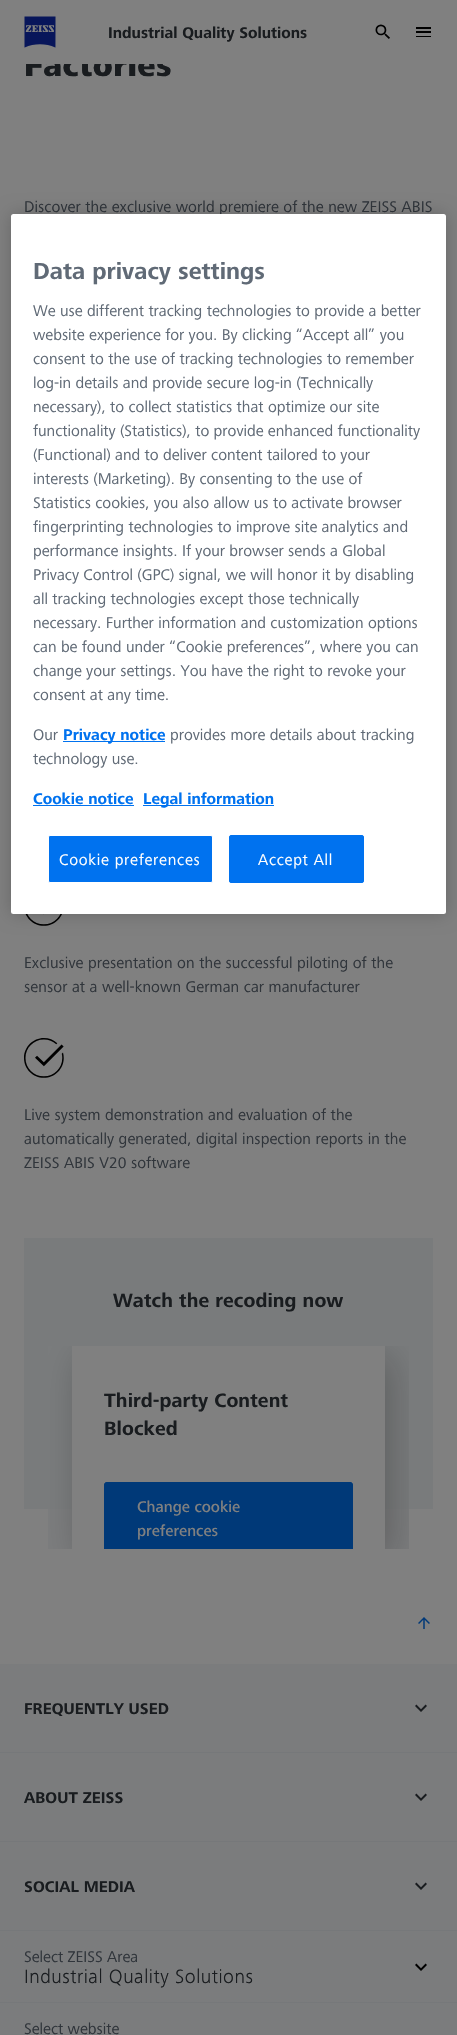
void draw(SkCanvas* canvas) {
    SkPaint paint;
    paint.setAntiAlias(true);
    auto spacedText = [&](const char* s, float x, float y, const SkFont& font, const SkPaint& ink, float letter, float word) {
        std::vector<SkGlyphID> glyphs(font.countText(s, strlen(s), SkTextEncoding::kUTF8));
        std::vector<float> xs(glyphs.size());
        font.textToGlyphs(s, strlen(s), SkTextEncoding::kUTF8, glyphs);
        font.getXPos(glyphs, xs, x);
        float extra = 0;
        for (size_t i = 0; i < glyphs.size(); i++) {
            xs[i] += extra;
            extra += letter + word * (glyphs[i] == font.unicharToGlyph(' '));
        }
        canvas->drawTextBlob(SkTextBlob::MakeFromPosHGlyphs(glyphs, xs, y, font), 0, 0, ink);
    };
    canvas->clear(0xFF808080);
    SkFont font1(fontMgr->matchFamilyStyle("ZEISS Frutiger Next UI", SkFontStyle(900, SkFontStyle::kNormal_Width, SkFontStyle::kUpright_Slant)), 32);
    font1.setSubpixel(true);
    paint.setColor(0xFF191C1F);
    spacedText("Factories", 24, 76, font1, paint, 0.5f, 0);
    paint.setColor(0xFF808080);
    canvas->drawRect(SkRect::MakeXYWH(26, 53, 144, 11), paint);
    canvas->drawImageRect(SkImages::DeferredFromEncodedData(SkData::MakeFromFileName("img1.png")), SkRect::MakeXYWH(24, 16, 32, 32), SkSamplingOptions());
    SkFont font2(fontMgr->matchFamilyStyle("ZEISS Frutiger Next UI", SkFontStyle::Bold()), 16);
    font2.setSubpixel(true);
    paint.setColor(0xFF191C1F);
    canvas->drawString("Industrial Quality Solutions", 108, 38, font2, paint);
    canvas->drawImageRect(SkImages::DeferredFromEncodedData(SkData::MakeFromFileName("img2.png")), SkRect::MakeXYWH(375, 24, 15, 15), SkSamplingOptions());
    canvas->drawImageRect(SkImages::DeferredFromEncodedData(SkData::MakeFromFileName("img3.png")), SkRect::MakeXYWH(416, 27, 15, 10), SkSamplingOptions());
    SkFont font3(fontMgr->matchFamilyStyle("ZEISS Frutiger Next UI", SkFontStyle::Normal()), 16);
    font3.setSubpixel(true);
    paint.setColor(0xFF30353B);
    spacedText("Discover the exclusive world premiere of the new ZEISS ABIS", 24, 212, font3, paint, 0.08f, 0);
    canvas->drawImageRect(SkImages::DeferredFromEncodedData(SkData::MakeFromFileName("img4.png")), SkRect::MakeXYWH(25, 914, 37, 12), SkSamplingOptions());
    spacedText("Exclusive presentation on the successful piloting of the", 24, 968, font3, paint, 0.08f, 0);
    spacedText("sensor at a well-known German car manufacturer", 24, 992, font3, paint, 0.08f, 0);
    canvas->drawImageRect(SkImages::DeferredFromEncodedData(SkData::MakeFromFileName("img5.png")), SkRect::MakeXYWH(24, 1038, 40, 40), SkSamplingOptions());
    spacedText("Live system demonstration and evaluation of the", 24, 1120, font3, paint, 0.08f, 0);
    spacedText("automatically generated, digital inspection reports in the", 24, 1144, font3, paint, 0.08f, 0);
    spacedText("ZEISS ABIS V20 software", 24, 1168, font3, paint, 0.08f, 0);
    paint.setColor(0xFF797B7C);
    canvas->drawRect(SkRect::MakeXYWH(24, 1238, 409, 271), paint);
    SkFont font4(fontMgr->matchFamilyStyle("ZEISS Frutiger Next UI", SkFontStyle::Bold()), 20);
    font4.setSubpixel(true);
    paint.setColor(0xFF191C1F);
    spacedText("Watch the recoding now", 113, 1307, font4, paint, 0.1f, 0);
    paint.setColor(0xFF7B7C7D);
    canvas->drawRect(SkRect::MakeXYWH(48, 1509, 361, 40), paint);
    canvas->save();
    canvas->clipRect(SkRect::MakeXYWH(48, 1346, 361, 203));
    paint.setColor(0x3D0D0D0D);
    paint.setMaskFilter(SkMaskFilter::MakeBlur(kNormal_SkBlurStyle, 17.5f));
    canvas->drawRect(SkRect::MakeXYWH(80, 1357, 313, 203), paint);
    paint.setMaskFilter(nullptr);
    canvas->restore();
    paint.setColor(0xFF808080);
    canvas->drawRect(SkRect::MakeXYWH(72, 1346, 313, 203), paint);
    paint.setColor(0xFF191C1F);
    spacedText("Third-party Content", 104, 1407, font4, paint, 0.1f, 0);
    spacedText("Blocked", 104, 1435, font4, paint, 0.1f, 0);
    paint.setColor(0xFF003978);
    canvas->drawPath(SkPathBuilder().moveTo(107, 1482).lineTo(350, 1482).cubicTo(351.5f, 1482, 353, 1483.5f, 353, 1485).lineTo(353, 1549).lineTo(104, 1549).lineTo(104, 1485).cubicTo(104, 1483.5f, 105.5f, 1482, 107, 1482).close().detach(), paint);
    canvas->save();
    canvas->clipRect(SkRect::MakeXYWH(48, 1346, 361, 203));
    paint.setStyle(SkPaint::kStroke_Style);
    paint.setStrokeWidth(1);
    canvas->drawRoundRect(SkRect::MakeXYWH(104.5f, 1482.5f, 248, 71), 2.5f, 2.5f, paint);
    canvas->restore();
    SkFont font5(fontMgr->matchFamilyStyle("ZEISS Frutiger Next UI", SkFontStyle(500, SkFontStyle::kNormal_Width, SkFontStyle::kUpright_Slant)), 16);
    font5.setSubpixel(true);
    paint.setStyle(SkPaint::kFill_Style);
    paint.setColor(0xFF808080);
    canvas->drawString("Change cookie", 137, 1512, font5, paint);
    canvas->drawString("preferences", 137, 1536, font5, paint);
    paint.setColor(0x33000000);
    paint.setMaskFilter(SkMaskFilter::MakeBlur(kNormal_SkBlurStyle, 9));
    canvas->drawRoundRect(SkRect::MakeXYWH(11, 214, 435, 700), 2.5f, 2.5f, paint);
    paint.setMaskFilter(nullptr);
    paint.setColor(0xFFFFFFFF);
    canvas->drawRoundRect(SkRect::MakeXYWH(11, 214, 435, 700), 2.5f, 2.5f, paint);
    SkFont font6(fontMgr->matchFamilyStyle("ZEISS Frutiger Next UI", SkFontStyle::Bold()), 24);
    font6.setSubpixel(true);
    paint.setColor(0xFF606A76);
    canvas->drawString("Data privacy settings", 33, 279, font6, paint);
    canvas->drawString("We use different tracking technologies to provide a better", 33, 316, font3, paint);
    canvas->drawString("website experience for you. By clicking “Accept all” you", 33, 340, font3, paint);
    canvas->drawString("consent to the use of tracking technologies to remember", 33, 364, font3, paint);
    canvas->drawString("log-in details and provide secure log-in (Technically", 33, 388, font3, paint);
    canvas->drawString("necessary), to collect statistics that optimize our site", 33, 412, font3, paint);
    canvas->drawString("functionality (Statistics), to provide enhanced functionality", 33, 436, font3, paint);
    canvas->drawString("(Functional) and to deliver content tailored to your", 33, 460, font3, paint);
    canvas->drawString("interests (Marketing). By consenting to the use of", 33, 484, font3, paint);
    canvas->drawString("Statistics cookies, you also allow us to activate browser", 33, 508, font3, paint);
    canvas->drawString("fingerprinting technologies to improve site analytics and", 33, 532, font3, paint);
    canvas->drawString("performance insights. If your browser sends a Global", 33, 556, font3, paint);
    canvas->drawString("Privacy Control (GPC) signal, we will honor it by disabling", 33, 580, font3, paint);
    canvas->drawString("all tracking technologies except those technically", 33, 604, font3, paint);
    canvas->drawString("necessary. Further information and customization options", 33, 628, font3, paint);
    canvas->drawString("can be found under “Cookie preferences”, where you can", 33, 652, font3, paint);
    canvas->drawString("change your settings. You have the right to revoke your", 33, 676, font3, paint);
    canvas->drawString("consent at any time.", 33, 700, font3, paint);
    canvas->drawString("Our", 33, 740, font3, paint);
    paint.setColor(0xFF0072EF);
    canvas->drawRect(SkRect::MakeXYWH(63, 741, 102, 1), paint);
    canvas->drawString("Privacy notice", 63, 740, font2, paint);
    paint.setColor(0xFF606A76);
    canvas->drawString("provides more details about tracking", 170, 740, font3, paint);
    canvas->drawString("technology use.", 33, 764, font3, paint);
    paint.setColor(0xFF0072EF);
    canvas->drawString("Cookie notice", 33, 804, font2, paint);
    canvas->drawRect(SkRect::MakeXYWH(33, 805, 101, 1), paint);
    canvas->drawRect(SkRect::MakeXYWH(143, 805, 131, 1), paint);
    canvas->drawString("Legal information", 143, 804, font2, paint);
    canvas->drawRoundRect(SkRect::MakeXYWH(48.5f, 835.5f, 164, 47), 1.5f, 1.5f, paint);
    paint.setStyle(SkPaint::kStroke_Style);
    paint.setColor(0xFFFFFFFF);
    canvas->drawRoundRect(SkRect::MakeXYWH(48.5f, 835.5f, 164, 47), 1.5f, 1.5f, paint);
    paint.setStyle(SkPaint::kFill_Style);
    spacedText("Cookie preferences", 59, 865, font3, paint, 0.75f, 0);
    paint.setColor(0xFF0072EF);
    canvas->drawRoundRect(SkRect::MakeXYWH(229.5f, 835.5f, 134, 47), 1.5f, 1.5f, paint);
    paint.setStyle(SkPaint::kStroke_Style);
    canvas->drawRoundRect(SkRect::MakeXYWH(229.5f, 835.5f, 134, 47), 1.5f, 1.5f, paint);
    paint.setStyle(SkPaint::kFill_Style);
    paint.setColor(0xFFFFFFFF);
    spacedText("Accept All", 258, 865, font3, paint, 0.75f, 0);
    canvas->drawImageRect(SkImages::DeferredFromEncodedData(SkData::MakeFromFileName("img6.png")), SkRect::MakeXYWH(418, 1617, 12, 12), SkSamplingOptions());
    paint.setColor(0xFF7B7C7D);
    canvas->drawRect(SkRect::MakeXYWH(0, 1664, 457, 371), paint);
    paint.setColor(0xFF76787A);
    canvas->drawRect(SkRect::MakeXYWH(0, 1752, 457, 1), paint);
    paint.setColor(0xFF191C1F);
    spacedText("FREQUENTLY USED", 24, 1714, font2, paint, 0.08f, 0);
    canvas->drawImageRect(SkImages::DeferredFromEncodedData(SkData::MakeFromFileName("img7.png")), SkRect::MakeXYWH(415, 1704, 12, 8), SkSamplingOptions());
    paint.setColor(0xFF76787A);
    canvas->drawRect(SkRect::MakeXYWH(0, 1841, 457, 1), paint);
    paint.setColor(0xFF191C1F);
    spacedText("ABOUT ZEISS", 24, 1803, font2, paint, 0.08f, 0);
    canvas->drawImageRect(SkImages::DeferredFromEncodedData(SkData::MakeFromFileName("img7.png")), SkRect::MakeXYWH(415, 1793, 12, 8), SkSamplingOptions());
    paint.setColor(0xFF76787A);
    canvas->drawRect(SkRect::MakeXYWH(0, 1930, 457, 1), paint);
    paint.setColor(0xFF191C1F);
    spacedText("SOCIAL MEDIA", 24, 1892, font2, paint, 0.08f, 0);
    canvas->drawImageRect(SkImages::DeferredFromEncodedData(SkData::MakeFromFileName("img7.png")), SkRect::MakeXYWH(415, 1882, 12, 8), SkSamplingOptions());
    paint.setColor(0xFF30353B);
    canvas->drawString("Select ZEISS Area", 24, 1962, font3, paint);
    canvas->drawImageRect(SkImages::DeferredFromEncodedData(SkData::MakeFromFileName("img8.png")), SkRect::MakeXYWH(415, 1963, 12, 8), SkSamplingOptions());
    SkFont font7(fontMgr->matchFamilyStyle("ZEISS Frutiger Next UI", SkFontStyle(300, SkFontStyle::kNormal_Width, SkFontStyle::kUpright_Slant)), 20);
    font7.setSubpixel(true);
    paint.setColor(0xFF191C1F);
    spacedText("Industrial Quality Solutions", 24, 1983, font7, paint, 0.5f, 0);
    paint.setColor(0xFF76787A);
    canvas->drawRect(SkRect::MakeXYWH(0, 2002, 457, 1), paint);
    paint.setColor(0xFF30353B);
    canvas->drawString("Select website", 24, 2034, font3, paint);
}
